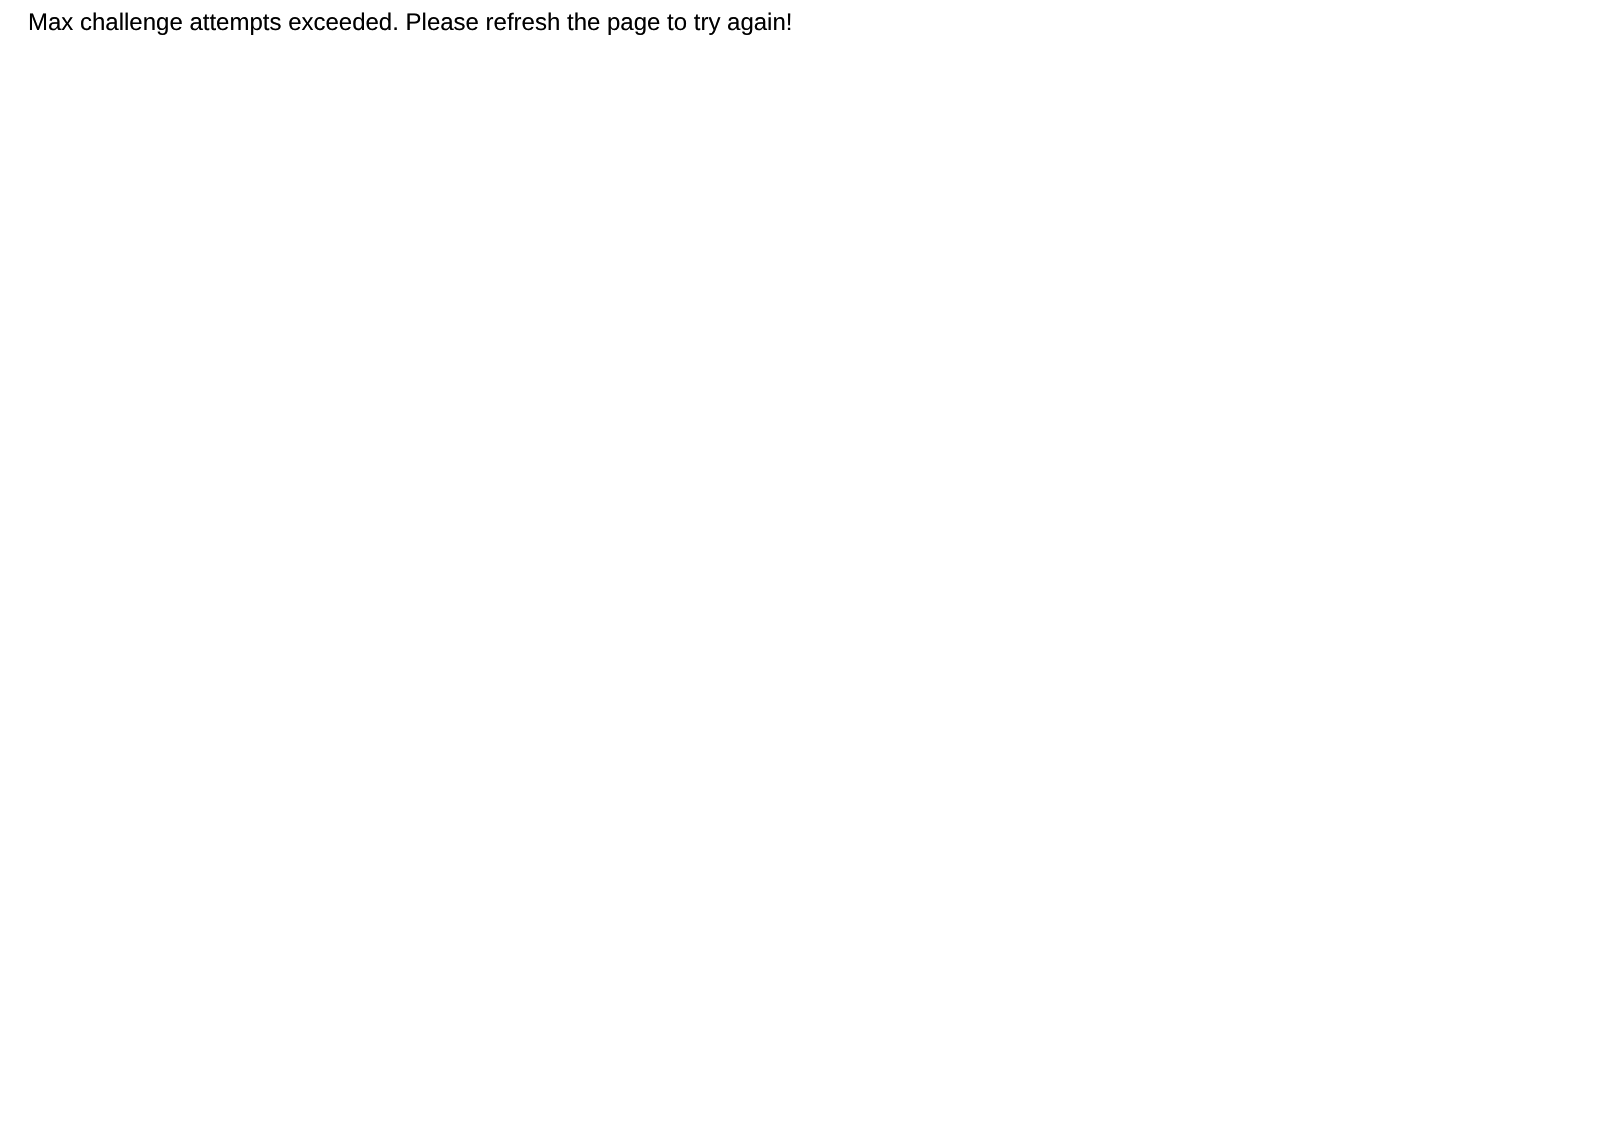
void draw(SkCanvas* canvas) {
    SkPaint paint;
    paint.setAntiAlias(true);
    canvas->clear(0xFFFFFFFF);
    SkFont font1(fontMgr->matchFamilyStyle("Liberation Sans", SkFontStyle::Normal()), 24);
    font1.setSubpixel(true);
    paint.setColor(0xFF000000);
    canvas->drawString("Max challenge attempts exceeded. Please refresh the page to try again!", 28, 30, font1, paint);
}
